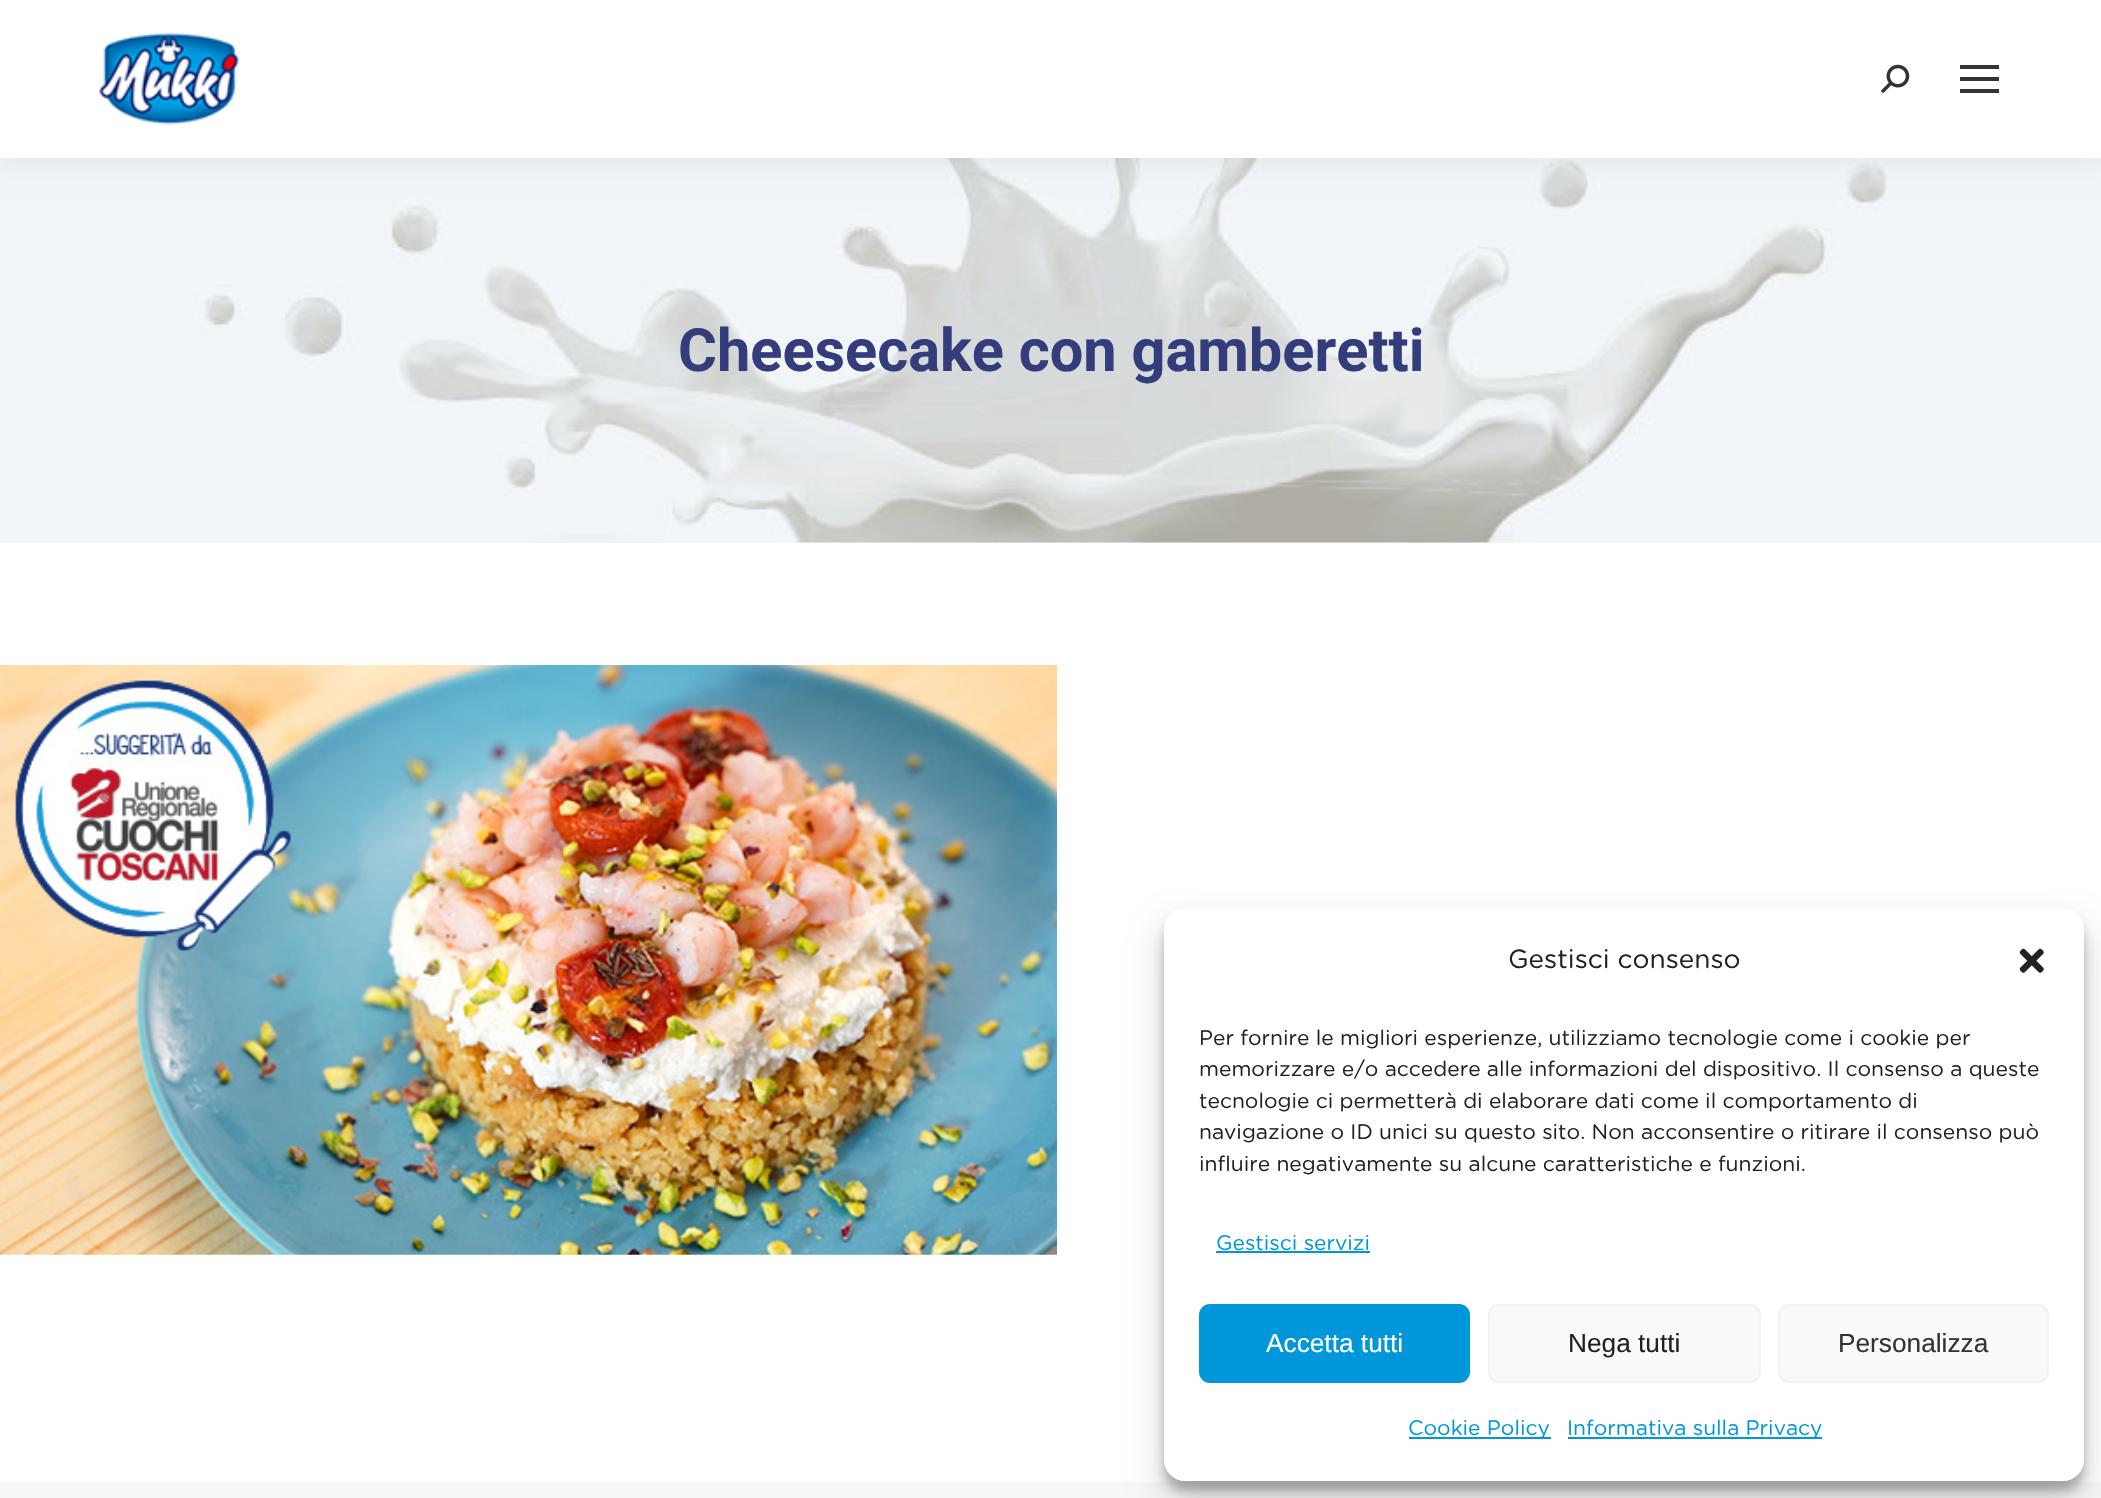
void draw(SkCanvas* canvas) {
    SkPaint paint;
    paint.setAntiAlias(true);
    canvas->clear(0xFFF7F7F7);
    canvas->drawImageRect(SkImages::DeferredFromEncodedData(SkData::MakeFromFileName("img3.png")), SkRect::MakeXYWH(0, 158, 2101, 385), SkSamplingOptions());
    paint.setColor(0x12000000);
    paint.setMaskFilter(SkMaskFilter::MakeBlur(kNormal_SkBlurStyle, 13));
    canvas->drawRect(SkRect::MakeXYWH(-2, -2, 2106, 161), paint);
    paint.setMaskFilter(nullptr);
    paint.setColor(0xFFFFFFFF);
    canvas->drawRect(SkRect::MakeXYWH(0, 0, 2101, 158), paint);
    canvas->drawImageRect(SkImages::DeferredFromEncodedData(SkData::MakeFromFileName("img1.png")), SkRect::MakeXYWH(99, 32, 141, 93), SkSamplingOptions());
    canvas->drawImageRect(SkImages::DeferredFromEncodedData(SkData::MakeFromFileName("img2.png")), SkRect::MakeXYWH(1881, 64, 29, 29), SkSamplingOptions());
    paint.setColor(0xFF333333);
    canvas->drawRect(SkRect::MakeXYWH(1960, 65, 39, 4), paint);
    canvas->drawRect(SkRect::MakeXYWH(1960, 77, 39, 4), paint);
    canvas->drawRect(SkRect::MakeXYWH(1960, 89, 39, 4), paint);
    paint.setColor(0xFFFFFFFF);
    canvas->drawRect(SkRect::MakeXYWH(0, 543, 2101, 939), paint);
    SkFont font1(fontMgr->matchFamilyStyle("Roboto", SkFontStyle::Bold()), 59.5f);
    font1.setSubpixel(true);
    paint.setColor(0xFF343D7B);
    canvas->drawString("Cheesecake con gamberetti", 678, 371, font1, paint);
    canvas->drawImageRect(SkImages::DeferredFromEncodedData(SkData::MakeFromFileName("img4.png")), SkRect::MakeXYWH(0, 665, 1057, 590), SkSamplingOptions());
    paint.setColor(0x3B000000);
    paint.setMaskFilter(SkMaskFilter::MakeBlur(kNormal_SkBlurStyle, 5));
    canvas->drawRoundRect(SkRect::MakeXYWH(1164, 919, 920, 572), 21, 21, paint);
    paint.setMaskFilter(nullptr);
    paint.setColor(0x30000000);
    paint.setMaskFilter(SkMaskFilter::MakeBlur(kNormal_SkBlurStyle, 17.5f));
    canvas->drawRoundRect(SkRect::MakeXYWH(1164, 926, 920, 572), 21, 21, paint);
    paint.setMaskFilter(nullptr);
    paint.setColor(0xFFFFFFFF);
    canvas->drawRoundRect(SkRect::MakeXYWH(1164, 908, 920, 573), 21, 21, paint);
    SkFont font2(fontMgr->matchFamilyStyle("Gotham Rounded", SkFontStyle::Normal()), 26.25f);
    font2.setSubpixel(true);
    paint.setColor(0xFF222222);
    canvas->drawString("Gestisci consenso", 1508, 968, font2, paint);
    canvas->drawImageRect(SkImages::DeferredFromEncodedData(SkData::MakeFromFileName("img5.png")), SkRect::MakeXYWH(2019, 948, 25, 25), SkSamplingOptions());
    SkFont font3(fontMgr->matchFamilyStyle("Gotham Rounded", SkFontStyle::Normal()), 21);
    font3.setSubpixel(true);
    canvas->drawString("Per fornire le migliori esperienze, utilizziamo tecnologie come i cookie per", 1199, 1045, font3, paint);
    canvas->drawString("memorizzare e/o accedere alle informazioni del dispositivo. Il consenso a queste", 1199, 1076, font3, paint);
    canvas->drawString("tecnologie ci permetterà di elaborare dati come il comportamento di", 1199, 1108, font3, paint);
    canvas->drawString("navigazione o ID unici su questo sito. Non acconsentire o ritirare il consenso può", 1199, 1139, font3, paint);
    canvas->drawString("influire negativamente su alcune caratteristiche e funzioni.", 1199, 1171, font3, paint);
    paint.setColor(0xFF0096DA);
    canvas->drawString("Gestisci servizi", 1216, 1250, font3, paint);
    canvas->drawRect(SkRect::MakeXYWH(1216, 1251, 154, 2), paint);
    canvas->drawRoundRect(SkRect::MakeXYWH(1200, 1305, 269, 77), 10, 10, paint);
    paint.setStyle(SkPaint::kStroke_Style);
    paint.setStrokeWidth(2);
    canvas->drawRoundRect(SkRect::MakeXYWH(1200, 1305, 269, 77), 10, 10, paint);
    SkFont font4(fontMgr->matchFamilyStyle("Liberation Sans", SkFontStyle::Normal()), 26.25f);
    font4.setSubpixel(true);
    paint.setStyle(SkPaint::kFill_Style);
    paint.setColor(0xFFFFFFFF);
    canvas->drawString("Accetta tutti", 1266, 1352, font4, paint);
    paint.setColor(0xFFF9F9F9);
    canvas->drawRoundRect(SkRect::MakeXYWH(1489, 1305, 271, 77), 10, 10, paint);
    paint.setStyle(SkPaint::kStroke_Style);
    paint.setColor(0xFFF2F2F2);
    canvas->drawRoundRect(SkRect::MakeXYWH(1489, 1305, 271, 77), 10, 10, paint);
    paint.setStyle(SkPaint::kFill_Style);
    paint.setColor(0xFF222222);
    canvas->drawString("Nega tutti", 1568, 1352, font4, paint);
    paint.setColor(0xFFF9F9F9);
    canvas->drawRoundRect(SkRect::MakeXYWH(1779, 1305, 269, 77), 10, 10, paint);
    paint.setStyle(SkPaint::kStroke_Style);
    paint.setColor(0xFFF2F2F2);
    canvas->drawRoundRect(SkRect::MakeXYWH(1779, 1305, 269, 77), 10, 10, paint);
    paint.setStyle(SkPaint::kFill_Style);
    paint.setColor(0xFF333333);
    canvas->drawString("Personalizza", 1838, 1352, font4, paint);
    paint.setColor(0xFF0096DA);
    canvas->drawRect(SkRect::MakeXYWH(1409, 1437, 142, 2), paint);
    canvas->drawString("Cookie Policy", 1408, 1435, font3, paint);
    canvas->drawRect(SkRect::MakeXYWH(1568, 1437, 254, 2), paint);
    canvas->drawString("Informativa sulla Privacy", 1567, 1435, font3, paint);
}
